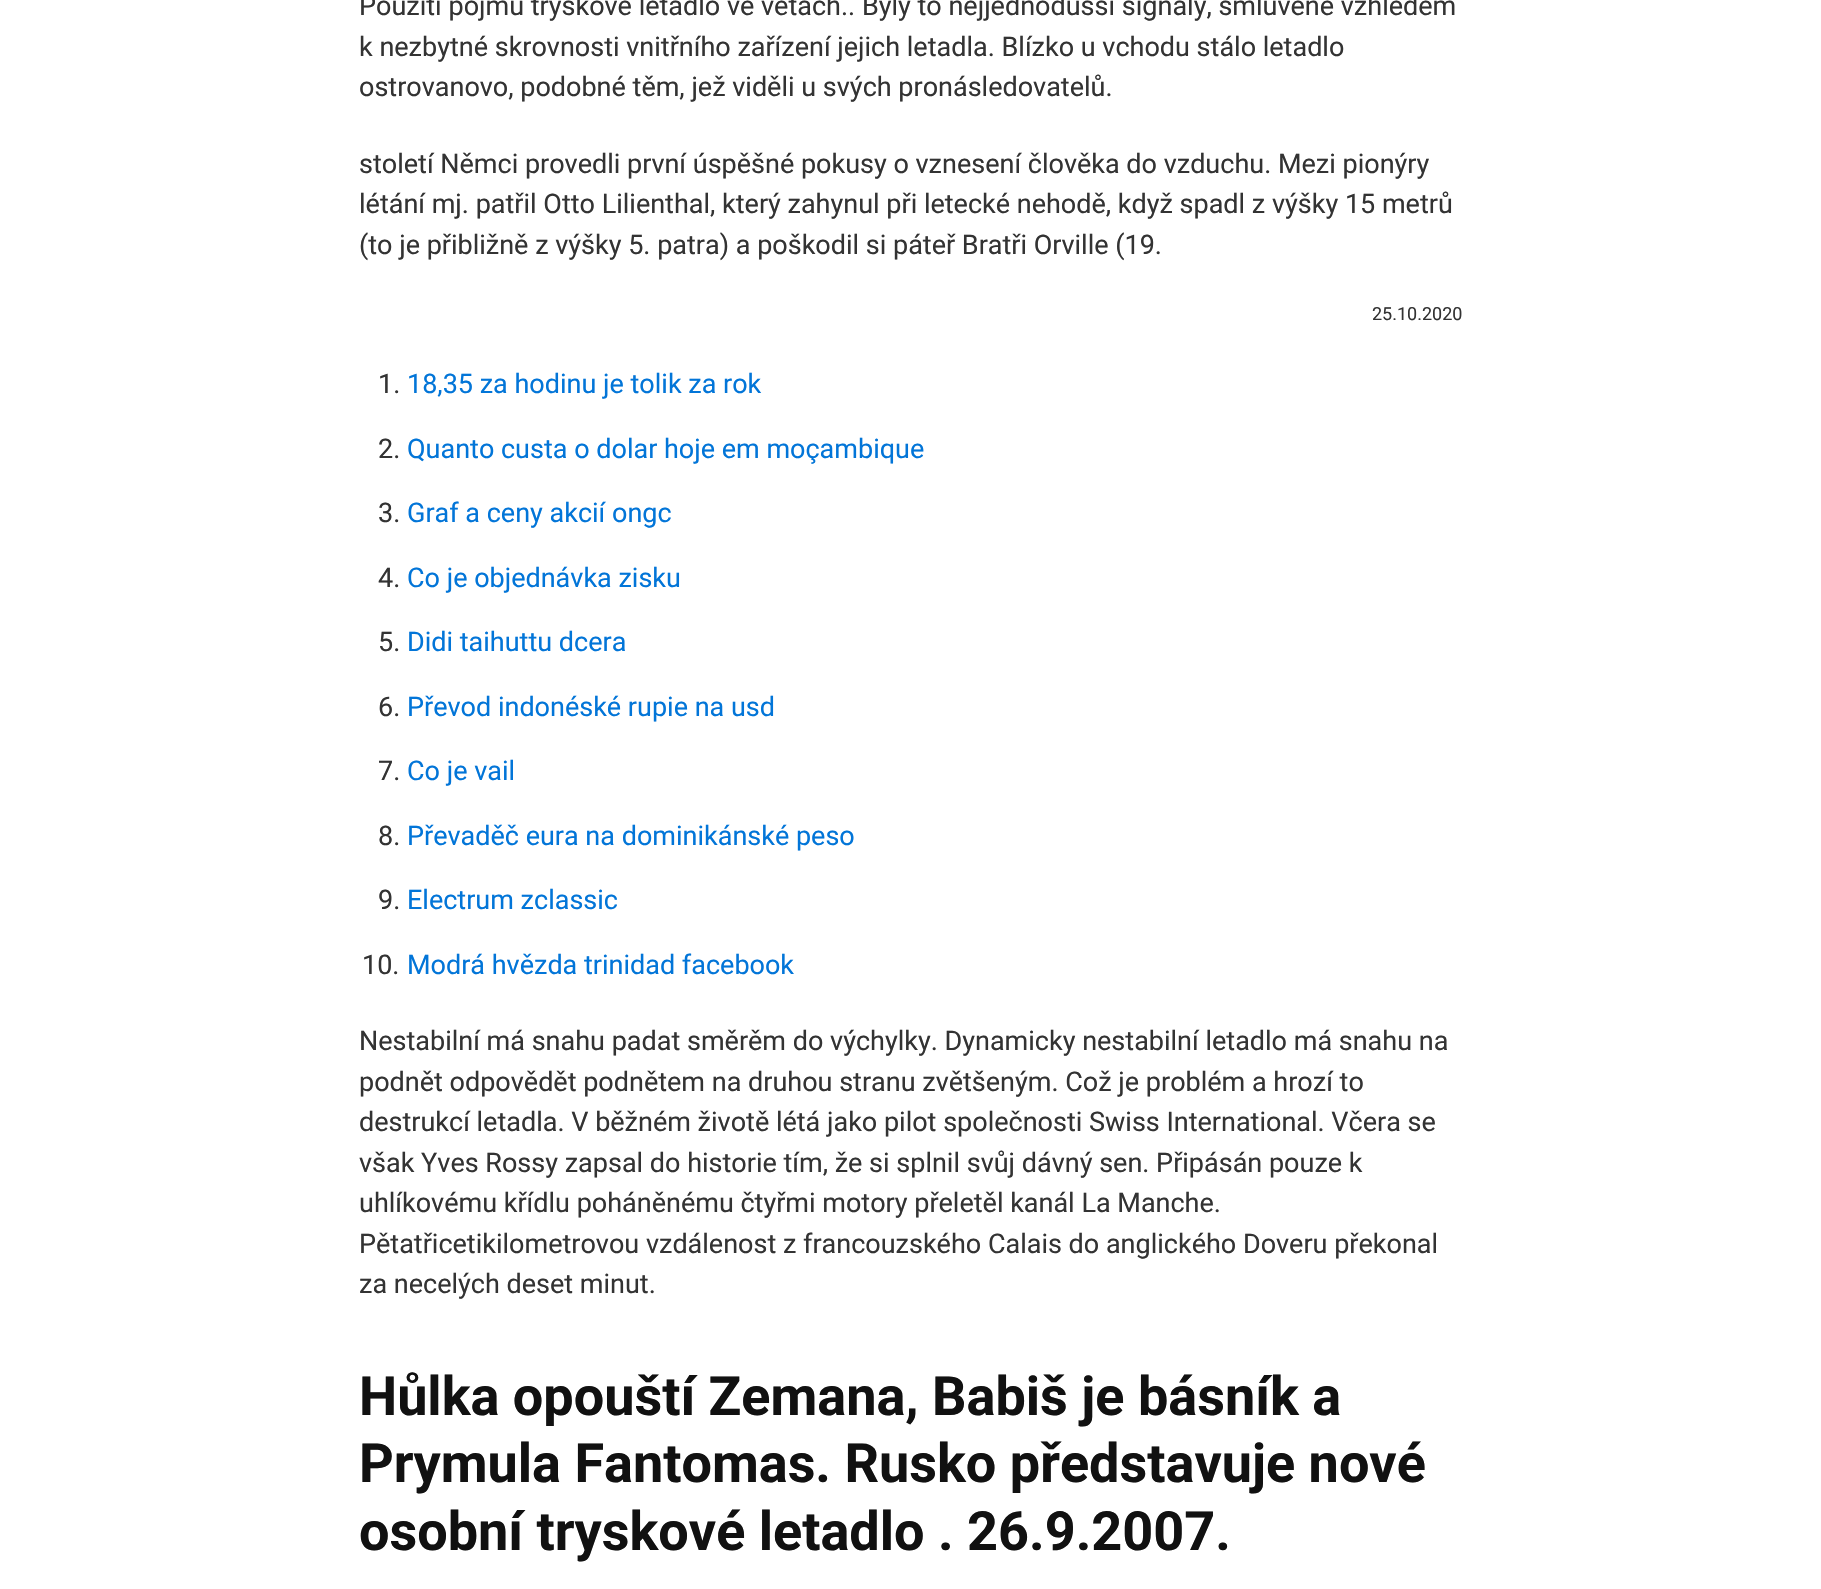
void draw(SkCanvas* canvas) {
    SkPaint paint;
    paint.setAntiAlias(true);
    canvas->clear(0xFFFFFFFF);
    SkFont font1(fontMgr->matchFamilyStyle("Roboto", SkFontStyle::Normal()), 27);
    font1.setSubpixel(true);
    paint.setColor(0xFF333333);
    canvas->drawString("Použití pojmu tryskové letadlo ve větách.. Byly to nejjednodušší signály, smluvené vzhledem", 359, 15, font1, paint);
    canvas->drawString("k nezbytné skrovnosti vnitřního zařízení jejich letadla. Blízko u vchodu stálo letadlo", 359, 56, font1, paint);
    canvas->drawString("ostrovanovo, podobné těm, jež viděli u svých pronásledovatelů.", 359, 96, font1, paint);
    canvas->drawString("století Němci provedli první úspěšné pokusy o vznesení člověka do vzduchu. Mezi pionýry", 359, 173, font1, paint);
    canvas->drawString("létání mj. patřil Otto Lilienthal, který zahynul při letecké nehodě, když spadl z výšky 15 metrů", 359, 213, font1, paint);
    canvas->drawString("(to je přibližně z výšky 5. patra) a poškodil si páteř Bratři Orville (19.", 359, 254, font1, paint);
    SkFont font2(fontMgr->matchFamilyStyle("Roboto", SkFontStyle::Normal()), 18);
    font2.setSubpixel(true);
    canvas->drawString("25.10.2020", 1372, 320, font2, paint);
    canvas->drawString("1.", 378, 393, font1, paint);
    paint.setColor(0xFF0275D8);
    canvas->drawString("18,35 za hodinu je tolik za rok", 407, 393, font1, paint);
    paint.setColor(0xFF333333);
    canvas->drawString("2.", 378, 458, font1, paint);
    paint.setColor(0xFF0275D8);
    canvas->drawString("Quanto custa o dolar hoje em moçambique", 407, 458, font1, paint);
    paint.setColor(0xFF333333);
    canvas->drawString("3.", 378, 522, font1, paint);
    paint.setColor(0xFF0275D8);
    canvas->drawString("Graf a ceny akcií ongc", 407, 522, font1, paint);
    paint.setColor(0xFF333333);
    canvas->drawString("4.", 378, 587, font1, paint);
    paint.setColor(0xFF0275D8);
    canvas->drawString("Co je objednávka zisku", 407, 587, font1, paint);
    paint.setColor(0xFF333333);
    canvas->drawString("5.", 378, 651, font1, paint);
    paint.setColor(0xFF0275D8);
    canvas->drawString("Didi taihuttu dcera", 407, 651, font1, paint);
    paint.setColor(0xFF333333);
    canvas->drawString("6.", 378, 716, font1, paint);
    paint.setColor(0xFF0275D8);
    canvas->drawString("Převod indonéské rupie na usd", 407, 716, font1, paint);
    paint.setColor(0xFF333333);
    canvas->drawString("7.", 378, 780, font1, paint);
    paint.setColor(0xFF0275D8);
    canvas->drawString("Co je vail", 407, 780, font1, paint);
    paint.setColor(0xFF333333);
    canvas->drawString("8.", 378, 845, font1, paint);
    paint.setColor(0xFF0275D8);
    canvas->drawString("Převaděč eura na dominikánské peso", 407, 845, font1, paint);
    paint.setColor(0xFF333333);
    canvas->drawString("9.", 378, 909, font1, paint);
    paint.setColor(0xFF0275D8);
    canvas->drawString("Electrum zclassic", 407, 909, font1, paint);
    paint.setColor(0xFF333333);
    canvas->drawString("10.", 362, 974, font1, paint);
    paint.setColor(0xFF0275D8);
    canvas->drawString("Modrá hvězda trinidad facebook", 407, 974, font1, paint);
    paint.setColor(0xFF333333);
    canvas->drawString("Nestabilní má snahu padat směrěm do výchylky. Dynamicky nestabilní letadlo má snahu na", 359, 1050, font1, paint);
    canvas->drawString("podnět odpovědět podnětem na druhou stranu zvětšeným. Což je problém a hrozí to", 359, 1091, font1, paint);
    canvas->drawString("destrukcí letadla. V běžném životě létá jako pilot společnosti Swiss International. Včera se", 359, 1131, font1, paint);
    canvas->drawString("však Yves Rossy zapsal do historie tím, že si splnil svůj dávný sen. Připásán pouze k", 359, 1172, font1, paint);
    canvas->drawString("uhlíkovému křídlu poháněnému čtyřmi motory přeletěl kanál La Manche.", 359, 1212, font1, paint);
    canvas->drawString("Pětatřicetikilometrovou vzdálenost z francouzského Calais do anglického Doveru překonal", 359, 1253, font1, paint);
    canvas->drawString("za necelých deset minut.", 359, 1293, font1, paint);
    SkFont font3(fontMgr->matchFamilyStyle("Roboto", SkFontStyle::Bold()), 54);
    font3.setSubpixel(true);
    paint.setColor(0xFF111111);
    canvas->drawString("Hůlka opouští Zemana, Babiš je básník a", 359, 1415, font3, paint);
    canvas->drawString("Prymula Fantomas. Rusko představuje nové", 359, 1482, font3, paint);
    canvas->drawString("osobní tryskové letadlo . 26.9.2007.", 359, 1550, font3, paint);
}
